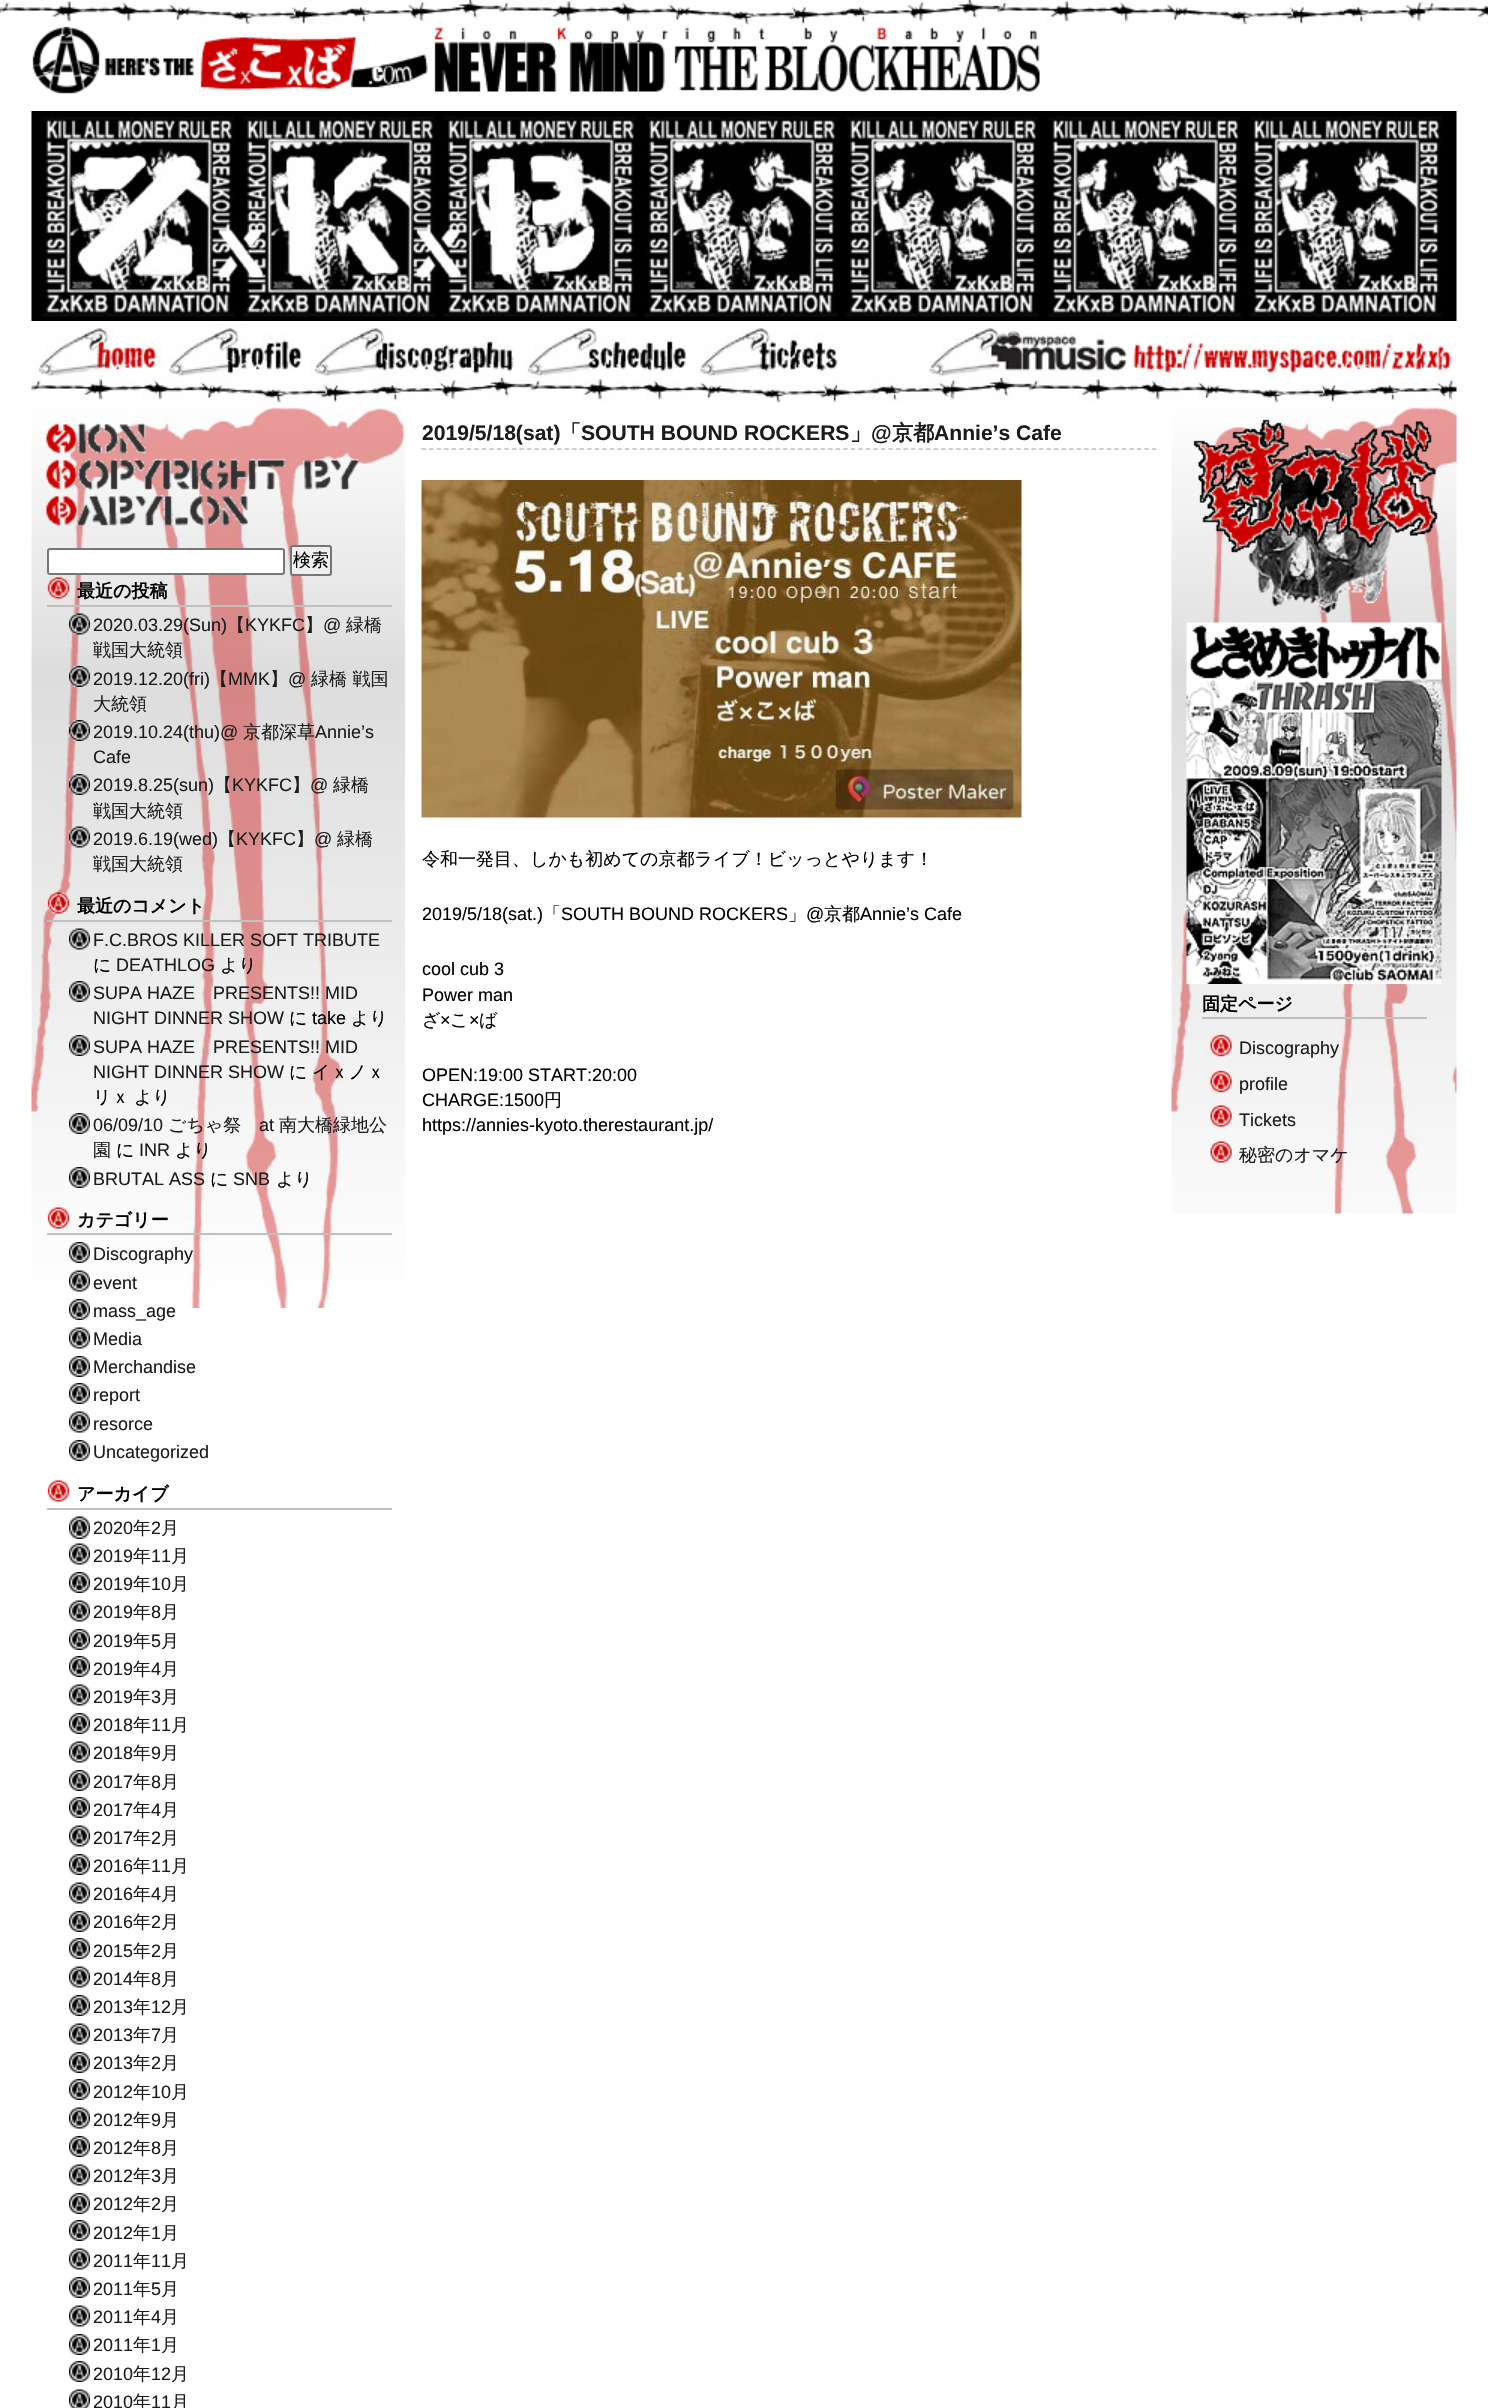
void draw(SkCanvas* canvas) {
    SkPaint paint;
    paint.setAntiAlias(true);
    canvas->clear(0xFFFFFFFF);
    canvas->drawImageRect(SkImages::DeferredFromEncodedData(SkData::MakeFromFileName("img1.png")), SkRect::MakeXYWH(0, 0, 1488, 25), SkSamplingOptions());
    canvas->drawImageRect(SkImages::DeferredFromEncodedData(SkData::MakeFromFileName("img2.png")), SkRect::MakeXYWH(32, 26, 1008, 68), SkSamplingOptions());
    canvas->drawImageRect(SkImages::DeferredFromEncodedData(SkData::MakeFromFileName("img3.png")), SkRect::MakeXYWH(31, 111, 1426, 210), SkSamplingOptions());
    canvas->drawImageRect(SkImages::DeferredFromEncodedData(SkData::MakeFromFileName("img4.png")), SkRect::MakeXYWH(33, 328, 131, 50), SkSamplingOptions());
    canvas->drawImageRect(SkImages::DeferredFromEncodedData(SkData::MakeFromFileName("img5.png")), SkRect::MakeXYWH(167, 321, 135, 57), SkSamplingOptions());
    canvas->drawImageRect(SkImages::DeferredFromEncodedData(SkData::MakeFromFileName("img6.png")), SkRect::MakeXYWH(309, 328, 205, 50), SkSamplingOptions());
    canvas->drawImageRect(SkImages::DeferredFromEncodedData(SkData::MakeFromFileName("img7.png")), SkRect::MakeXYWH(522, 328, 164, 50), SkSamplingOptions());
    canvas->drawImageRect(SkImages::DeferredFromEncodedData(SkData::MakeFromFileName("img8.png")), SkRect::MakeXYWH(695, 328, 143, 50), SkSamplingOptions());
    canvas->drawImageRect(SkImages::DeferredFromEncodedData(SkData::MakeFromFileName("img9.png")), SkRect::MakeXYWH(929, 328, 526, 50), SkSamplingOptions());
    canvas->drawImageRect(SkImages::DeferredFromEncodedData(SkData::MakeFromFileName("img10.png")), SkRect::MakeXYWH(31, 378, 1426, 25), SkSamplingOptions());
    canvas->drawImageRect(SkImages::DeferredFromEncodedData(SkData::MakeFromFileName("img11.png")), SkRect::MakeXYWH(31, 404, 375, 904), SkSamplingOptions());
    canvas->drawImageRect(SkImages::DeferredFromEncodedData(SkData::MakeFromFileName("img12.png")), SkRect::MakeXYWH(46, 422, 313, 104), SkSamplingOptions());
    paint.setColor(0xFFFFFFFF);
    canvas->drawRoundRect(SkRect::MakeXYWH(48, 549, 236, 25), 2, 2, paint);
    paint.setStyle(SkPaint::kStroke_Style);
    paint.setStrokeWidth(2);
    paint.setColor(0xFF767676);
    canvas->drawRoundRect(SkRect::MakeXYWH(48, 549, 236, 25), 2, 2, paint);
    paint.setStyle(SkPaint::kFill_Style);
    paint.setColor(0xFFEFEFEF);
    canvas->drawRoundRect(SkRect::MakeXYWH(291, 546, 40, 29), 2, 2, paint);
    paint.setStyle(SkPaint::kStroke_Style);
    paint.setColor(0xFF767676);
    canvas->drawRoundRect(SkRect::MakeXYWH(291, 546, 40, 29), 2, 2, paint);
    SkFont font1(fontMgr->matchFamilyStyle("WenQuanYi Zen Hei", SkFontStyle(500, SkFontStyle::kNormal_Width, SkFontStyle::kUpright_Slant)), 18);
    font1.setSubpixel(true);
    paint.setStyle(SkPaint::kFill_Style);
    paint.setColor(0xFF000000);
    canvas->drawString("検索", 293, 566, font1, paint);
    canvas->drawImageRect(SkImages::DeferredFromEncodedData(SkData::MakeFromFileName("img13.png")), SkRect::MakeXYWH(47, 577, 23, 22), SkSamplingOptions());
    paint.setColor(0xFFC0C0C0);
    canvas->drawRect(SkRect::MakeXYWH(47, 605, 345, 2), paint);
    SkFont font2(fontMgr->matchFamilyStyle("WenQuanYi Zen Hei", SkFontStyle::Bold()), 18);
    font2.setSubpixel(true);
    paint.setColor(0xFF000000);
    canvas->drawString("最近の投稿", 77, 597, font2, paint);
    canvas->drawImageRect(SkImages::DeferredFromEncodedData(SkData::MakeFromFileName("img14.png")), SkRect::MakeXYWH(69, 613, 21, 22), SkSamplingOptions());
    SkFont font3(fontMgr->matchFamilyStyle("Liberation Sans", SkFontStyle::Normal()), 18);
    font3.setSubpixel(true);
    paint.setColor(0xFF1C1C1C);
    canvas->drawString("2020.03.29(Sun)", 93, 631, font3, paint);
    canvas->drawString("【", 227, 631, font1, paint);
    canvas->drawString("KYKFC", 245, 631, font3, paint);
    canvas->drawString("】", 305, 631, font1, paint);
    canvas->drawString("@", 323, 631, font3, paint);
    canvas->drawString("緑橋", 346, 631, font1, paint);
    canvas->drawString("戦国大統領", 93, 656, font1, paint);
    canvas->drawImageRect(SkImages::DeferredFromEncodedData(SkData::MakeFromFileName("img15.png")), SkRect::MakeXYWH(69, 666, 21, 21), SkSamplingOptions());
    canvas->drawString("2019.12.20(fri)", 93, 685, font3, paint);
    canvas->drawString("【", 210, 685, font1, paint);
    canvas->drawString("MMK", 228, 685, font3, paint);
    canvas->drawString("】", 270, 685, font1, paint);
    canvas->drawString("@", 288, 685, font3, paint);
    canvas->drawString("緑橋 戦国", 311, 685, font1, paint);
    canvas->drawString("大統領", 93, 710, font1, paint);
    canvas->drawImageRect(SkImages::DeferredFromEncodedData(SkData::MakeFromFileName("img16.png")), SkRect::MakeXYWH(69, 720, 21, 21), SkSamplingOptions());
    canvas->drawString("2019.10.24(thu)@", 93, 738, font3, paint);
    canvas->drawString("京都深草", 243, 738, font1, paint);
    canvas->drawString("Annie’s", 315, 738, font3, paint);
    canvas->drawString("Cafe", 93, 763, font3, paint);
    canvas->drawImageRect(SkImages::DeferredFromEncodedData(SkData::MakeFromFileName("img17.png")), SkRect::MakeXYWH(69, 774, 21, 21), SkSamplingOptions());
    canvas->drawString("2019.8.25(sun)", 93, 791, font3, paint);
    canvas->drawString("【", 214, 791, font1, paint);
    canvas->drawString("KYKFC", 232, 791, font3, paint);
    canvas->drawString("】", 292, 791, font1, paint);
    canvas->drawString("@", 310, 791, font3, paint);
    canvas->drawString("緑橋", 333, 791, font1, paint);
    canvas->drawString("戦国大統領", 93, 817, font1, paint);
    canvas->drawImageRect(SkImages::DeferredFromEncodedData(SkData::MakeFromFileName("img18.png")), SkRect::MakeXYWH(69, 826, 21, 22), SkSamplingOptions());
    canvas->drawString("2019.6.19(wed)", 93, 845, font3, paint);
    canvas->drawString("【", 218, 845, font1, paint);
    canvas->drawString("KYKFC", 236, 845, font3, paint);
    canvas->drawString("】", 296, 845, font1, paint);
    canvas->drawString("@", 314, 845, font3, paint);
    canvas->drawString("緑橋", 337, 845, font1, paint);
    canvas->drawString("戦国大統領", 93, 870, font1, paint);
    canvas->drawImageRect(SkImages::DeferredFromEncodedData(SkData::MakeFromFileName("img19.png")), SkRect::MakeXYWH(47, 892, 23, 22), SkSamplingOptions());
    paint.setColor(0xFFC0C0C0);
    canvas->drawRect(SkRect::MakeXYWH(47, 920, 345, 2), paint);
    paint.setColor(0xFF000000);
    canvas->drawString("最近のコメント", 77, 912, font2, paint);
    canvas->drawImageRect(SkImages::DeferredFromEncodedData(SkData::MakeFromFileName("img20.png")), SkRect::MakeXYWH(69, 928, 21, 22), SkSamplingOptions());
    paint.setColor(0xFF1C1C1C);
    canvas->drawString("F.C.BROS KILLER SOFT TRIBUTE", 93, 946, font3, paint);
    paint.setColor(0xFF000000);
    canvas->drawString("に", 93, 971, font1, paint);
    paint.setColor(0xFF1C1C1C);
    canvas->drawString("DEATHLOG", 116, 971, font3, paint);
    paint.setColor(0xFF000000);
    canvas->drawString("より", 220, 971, font1, paint);
    canvas->drawImageRect(SkImages::DeferredFromEncodedData(SkData::MakeFromFileName("img21.png")), SkRect::MakeXYWH(69, 981, 21, 21), SkSamplingOptions());
    paint.setColor(0xFF1C1C1C);
    canvas->drawString("SUPA HAZE", 93, 999, font3, paint);
    canvas->drawString("PRESENTS!! MID", 213, 999, font3, paint);
    canvas->drawString("NIGHT DINNER SHOW", 93, 1024, font3, paint);
    paint.setColor(0xFF000000);
    canvas->drawString("に", 289, 1024, font1, paint);
    canvas->drawString("take", 312, 1024, font3, paint);
    canvas->drawString("より", 351, 1024, font1, paint);
    canvas->drawImageRect(SkImages::DeferredFromEncodedData(SkData::MakeFromFileName("img22.png")), SkRect::MakeXYWH(69, 1035, 21, 21), SkSamplingOptions());
    paint.setColor(0xFF1C1C1C);
    canvas->drawString("SUPA HAZE", 93, 1053, font3, paint);
    canvas->drawString("PRESENTS!! MID", 213, 1053, font3, paint);
    canvas->drawString("NIGHT DINNER SHOW", 93, 1078, font3, paint);
    paint.setColor(0xFF000000);
    canvas->drawString("に", 289, 1078, font1, paint);
    canvas->drawString("イｘノｘ", 312, 1078, font1, paint);
    canvas->drawString("リｘ", 93, 1103, font1, paint);
    canvas->drawString("より", 134, 1103, font1, paint);
    canvas->drawImageRect(SkImages::DeferredFromEncodedData(SkData::MakeFromFileName("img23.png")), SkRect::MakeXYWH(69, 1113, 21, 21), SkSamplingOptions());
    paint.setColor(0xFF1C1C1C);
    canvas->drawString("06/09/10", 93, 1131, font3, paint);
    canvas->drawString("ごちゃ祭", 168, 1131, font1, paint);
    canvas->drawString("at", 259, 1131, font3, paint);
    canvas->drawString("南大橋緑地公", 279, 1131, font1, paint);
    canvas->drawString("園", 93, 1156, font1, paint);
    paint.setColor(0xFF000000);
    canvas->drawString("に", 116, 1156, font1, paint);
    paint.setColor(0xFF1C1C1C);
    canvas->drawString("INR", 139, 1156, font3, paint);
    paint.setColor(0xFF000000);
    canvas->drawString("より", 175, 1156, font1, paint);
    canvas->drawImageRect(SkImages::DeferredFromEncodedData(SkData::MakeFromFileName("img24.png")), SkRect::MakeXYWH(69, 1167, 21, 21), SkSamplingOptions());
    paint.setColor(0xFF1C1C1C);
    canvas->drawString("BRUTAL ASS", 93, 1185, font3, paint);
    paint.setColor(0xFF000000);
    canvas->drawString("に", 210, 1185, font1, paint);
    paint.setColor(0xFF1C1C1C);
    canvas->drawString("SNB", 233, 1185, font3, paint);
    paint.setColor(0xFF000000);
    canvas->drawString("より", 276, 1185, font1, paint);
    canvas->drawImageRect(SkImages::DeferredFromEncodedData(SkData::MakeFromFileName("img25.png")), SkRect::MakeXYWH(47, 1207, 23, 22), SkSamplingOptions());
    paint.setColor(0xFFC0C0C0);
    canvas->drawRect(SkRect::MakeXYWH(47, 1233, 345, 2), paint);
    paint.setColor(0xFF000000);
    canvas->drawString("カテゴリー", 77, 1226, font2, paint);
    canvas->drawImageRect(SkImages::DeferredFromEncodedData(SkData::MakeFromFileName("img26.png")), SkRect::MakeXYWH(69, 1242, 21, 21), SkSamplingOptions());
    paint.setColor(0xFF1C1C1C);
    canvas->drawString("Discography", 93, 1260, font3, paint);
    canvas->drawImageRect(SkImages::DeferredFromEncodedData(SkData::MakeFromFileName("img27.png")), SkRect::MakeXYWH(69, 1270, 21, 22), SkSamplingOptions());
    canvas->drawString("event", 93, 1289, font3, paint);
    canvas->drawImageRect(SkImages::DeferredFromEncodedData(SkData::MakeFromFileName("img28.png")), SkRect::MakeXYWH(69, 1299, 21, 21), SkSamplingOptions());
    canvas->drawString("mass_age", 93, 1317, font3, paint);
    canvas->drawImageRect(SkImages::DeferredFromEncodedData(SkData::MakeFromFileName("img29.png")), SkRect::MakeXYWH(69, 1327, 21, 22), SkSamplingOptions());
    canvas->drawString("Media", 93, 1345, font3, paint);
    canvas->drawImageRect(SkImages::DeferredFromEncodedData(SkData::MakeFromFileName("img28.png")), SkRect::MakeXYWH(69, 1356, 21, 21), SkSamplingOptions());
    canvas->drawString("Merchandise", 93, 1373, font3, paint);
    canvas->drawImageRect(SkImages::DeferredFromEncodedData(SkData::MakeFromFileName("img28.png")), SkRect::MakeXYWH(69, 1383, 21, 21), SkSamplingOptions());
    canvas->drawString("report", 93, 1401, font3, paint);
    canvas->drawImageRect(SkImages::DeferredFromEncodedData(SkData::MakeFromFileName("img29.png")), SkRect::MakeXYWH(69, 1411, 21, 22), SkSamplingOptions());
    canvas->drawString("resorce", 93, 1430, font3, paint);
    canvas->drawImageRect(SkImages::DeferredFromEncodedData(SkData::MakeFromFileName("img28.png")), SkRect::MakeXYWH(69, 1440, 21, 21), SkSamplingOptions());
    canvas->drawString("Uncategorized", 93, 1458, font3, paint);
    canvas->drawImageRect(SkImages::DeferredFromEncodedData(SkData::MakeFromFileName("img30.png")), SkRect::MakeXYWH(47, 1480, 23, 22), SkSamplingOptions());
    paint.setColor(0xFFC0C0C0);
    canvas->drawRect(SkRect::MakeXYWH(47, 1508, 345, 2), paint);
    paint.setColor(0xFF000000);
    canvas->drawString("アーカイブ", 77, 1500, font2, paint);
    canvas->drawImageRect(SkImages::DeferredFromEncodedData(SkData::MakeFromFileName("img31.png")), SkRect::MakeXYWH(69, 1516, 21, 23), SkSamplingOptions());
    paint.setColor(0xFF1C1C1C);
    canvas->drawString("2020", 93, 1534, font3, paint);
    canvas->drawString("年", 133, 1534, font1, paint);
    canvas->drawString("2", 151, 1534, font3, paint);
    canvas->drawString("月", 161, 1534, font1, paint);
    canvas->drawImageRect(SkImages::DeferredFromEncodedData(SkData::MakeFromFileName("img29.png")), SkRect::MakeXYWH(69, 1543, 21, 22), SkSamplingOptions());
    canvas->drawString("2019", 93, 1562, font3, paint);
    canvas->drawString("年", 133, 1562, font1, paint);
    canvas->drawString("11", 151, 1562, font3, paint);
    canvas->drawString("月", 171, 1562, font1, paint);
    canvas->drawImageRect(SkImages::DeferredFromEncodedData(SkData::MakeFromFileName("img28.png")), SkRect::MakeXYWH(69, 1572, 21, 21), SkSamplingOptions());
    canvas->drawString("2019", 93, 1590, font3, paint);
    canvas->drawString("年", 133, 1590, font1, paint);
    canvas->drawString("10", 151, 1590, font3, paint);
    canvas->drawString("月", 171, 1590, font1, paint);
    canvas->drawImageRect(SkImages::DeferredFromEncodedData(SkData::MakeFromFileName("img29.png")), SkRect::MakeXYWH(69, 1600, 21, 22), SkSamplingOptions());
    canvas->drawString("2019", 93, 1618, font3, paint);
    canvas->drawString("年", 133, 1618, font1, paint);
    canvas->drawString("8", 151, 1618, font3, paint);
    canvas->drawString("月", 161, 1618, font1, paint);
    canvas->drawImageRect(SkImages::DeferredFromEncodedData(SkData::MakeFromFileName("img28.png")), SkRect::MakeXYWH(69, 1629, 21, 21), SkSamplingOptions());
    canvas->drawString("2019", 93, 1647, font3, paint);
    canvas->drawString("年", 133, 1647, font1, paint);
    canvas->drawString("5", 151, 1647, font3, paint);
    canvas->drawString("月", 161, 1647, font1, paint);
    canvas->drawImageRect(SkImages::DeferredFromEncodedData(SkData::MakeFromFileName("img28.png")), SkRect::MakeXYWH(69, 1656, 21, 21), SkSamplingOptions());
    canvas->drawString("2019", 93, 1675, font3, paint);
    canvas->drawString("年", 133, 1675, font1, paint);
    canvas->drawString("4", 151, 1675, font3, paint);
    canvas->drawString("月", 161, 1675, font1, paint);
    canvas->drawImageRect(SkImages::DeferredFromEncodedData(SkData::MakeFromFileName("img29.png")), SkRect::MakeXYWH(69, 1684, 21, 22), SkSamplingOptions());
    canvas->drawString("2019", 93, 1703, font3, paint);
    canvas->drawString("年", 133, 1703, font1, paint);
    canvas->drawString("3", 151, 1703, font3, paint);
    canvas->drawString("月", 161, 1703, font1, paint);
    canvas->drawImageRect(SkImages::DeferredFromEncodedData(SkData::MakeFromFileName("img28.png")), SkRect::MakeXYWH(69, 1713, 21, 21), SkSamplingOptions());
    canvas->drawString("2018", 93, 1731, font3, paint);
    canvas->drawString("年", 133, 1731, font1, paint);
    canvas->drawString("11", 151, 1731, font3, paint);
    canvas->drawString("月", 171, 1731, font1, paint);
    canvas->drawImageRect(SkImages::DeferredFromEncodedData(SkData::MakeFromFileName("img29.png")), SkRect::MakeXYWH(69, 1741, 21, 22), SkSamplingOptions());
    canvas->drawString("2018", 93, 1759, font3, paint);
    canvas->drawString("年", 133, 1759, font1, paint);
    canvas->drawString("9", 151, 1759, font3, paint);
    canvas->drawString("月", 161, 1759, font1, paint);
    canvas->drawImageRect(SkImages::DeferredFromEncodedData(SkData::MakeFromFileName("img28.png")), SkRect::MakeXYWH(69, 1770, 21, 21), SkSamplingOptions());
    canvas->drawString("2017", 93, 1788, font3, paint);
    canvas->drawString("年", 133, 1788, font1, paint);
    canvas->drawString("8", 151, 1788, font3, paint);
    canvas->drawString("月", 161, 1788, font1, paint);
    canvas->drawImageRect(SkImages::DeferredFromEncodedData(SkData::MakeFromFileName("img28.png")), SkRect::MakeXYWH(69, 1797, 21, 21), SkSamplingOptions());
    canvas->drawString("2017", 93, 1816, font3, paint);
    canvas->drawString("年", 133, 1816, font1, paint);
    canvas->drawString("4", 151, 1816, font3, paint);
    canvas->drawString("月", 161, 1816, font1, paint);
    canvas->drawImageRect(SkImages::DeferredFromEncodedData(SkData::MakeFromFileName("img29.png")), SkRect::MakeXYWH(69, 1825, 21, 22), SkSamplingOptions());
    canvas->drawString("2017", 93, 1844, font3, paint);
    canvas->drawString("年", 133, 1844, font1, paint);
    canvas->drawString("2", 151, 1844, font3, paint);
    canvas->drawString("月", 161, 1844, font1, paint);
    canvas->drawImageRect(SkImages::DeferredFromEncodedData(SkData::MakeFromFileName("img28.png")), SkRect::MakeXYWH(69, 1854, 21, 21), SkSamplingOptions());
    canvas->drawString("2016", 93, 1872, font3, paint);
    canvas->drawString("年", 133, 1872, font1, paint);
    canvas->drawString("11", 151, 1872, font3, paint);
    canvas->drawString("月", 171, 1872, font1, paint);
    canvas->drawImageRect(SkImages::DeferredFromEncodedData(SkData::MakeFromFileName("img29.png")), SkRect::MakeXYWH(69, 1882, 21, 22), SkSamplingOptions());
    canvas->drawString("2016", 93, 1900, font3, paint);
    canvas->drawString("年", 133, 1900, font1, paint);
    canvas->drawString("4", 151, 1900, font3, paint);
    canvas->drawString("月", 161, 1900, font1, paint);
    canvas->drawImageRect(SkImages::DeferredFromEncodedData(SkData::MakeFromFileName("img28.png")), SkRect::MakeXYWH(69, 1911, 21, 21), SkSamplingOptions());
    canvas->drawString("2016", 93, 1928, font3, paint);
    canvas->drawString("年", 133, 1928, font1, paint);
    canvas->drawString("2", 151, 1928, font3, paint);
    canvas->drawString("月", 161, 1928, font1, paint);
    canvas->drawImageRect(SkImages::DeferredFromEncodedData(SkData::MakeFromFileName("img28.png")), SkRect::MakeXYWH(69, 1938, 21, 21), SkSamplingOptions());
    canvas->drawString("2015", 93, 1957, font3, paint);
    canvas->drawString("年", 133, 1957, font1, paint);
    canvas->drawString("2", 151, 1957, font3, paint);
    canvas->drawString("月", 161, 1957, font1, paint);
    canvas->drawImageRect(SkImages::DeferredFromEncodedData(SkData::MakeFromFileName("img29.png")), SkRect::MakeXYWH(69, 1966, 21, 22), SkSamplingOptions());
    canvas->drawString("2014", 93, 1985, font3, paint);
    canvas->drawString("年", 133, 1985, font1, paint);
    canvas->drawString("8", 151, 1985, font3, paint);
    canvas->drawString("月", 161, 1985, font1, paint);
    canvas->drawImageRect(SkImages::DeferredFromEncodedData(SkData::MakeFromFileName("img28.png")), SkRect::MakeXYWH(69, 1995, 21, 21), SkSamplingOptions());
    canvas->drawString("2013", 93, 2013, font3, paint);
    canvas->drawString("年", 133, 2013, font1, paint);
    canvas->drawString("12", 151, 2013, font3, paint);
    canvas->drawString("月", 171, 2013, font1, paint);
    canvas->drawImageRect(SkImages::DeferredFromEncodedData(SkData::MakeFromFileName("img29.png")), SkRect::MakeXYWH(69, 2023, 21, 22), SkSamplingOptions());
    canvas->drawString("2013", 93, 2041, font3, paint);
    canvas->drawString("年", 133, 2041, font1, paint);
    canvas->drawString("7", 151, 2041, font3, paint);
    canvas->drawString("月", 161, 2041, font1, paint);
    canvas->drawImageRect(SkImages::DeferredFromEncodedData(SkData::MakeFromFileName("img28.png")), SkRect::MakeXYWH(69, 2052, 21, 21), SkSamplingOptions());
    canvas->drawString("2013", 93, 2069, font3, paint);
    canvas->drawString("年", 133, 2069, font1, paint);
    canvas->drawString("2", 151, 2069, font3, paint);
    canvas->drawString("月", 161, 2069, font1, paint);
    canvas->drawImageRect(SkImages::DeferredFromEncodedData(SkData::MakeFromFileName("img28.png")), SkRect::MakeXYWH(69, 2079, 21, 21), SkSamplingOptions());
    canvas->drawString("2012", 93, 2098, font3, paint);
    canvas->drawString("年", 133, 2098, font1, paint);
    canvas->drawString("10", 151, 2098, font3, paint);
    canvas->drawString("月", 171, 2098, font1, paint);
    canvas->drawImageRect(SkImages::DeferredFromEncodedData(SkData::MakeFromFileName("img29.png")), SkRect::MakeXYWH(69, 2107, 21, 22), SkSamplingOptions());
    canvas->drawString("2012", 93, 2126, font3, paint);
    canvas->drawString("年", 133, 2126, font1, paint);
    canvas->drawString("9", 151, 2126, font3, paint);
    canvas->drawString("月", 161, 2126, font1, paint);
    canvas->drawImageRect(SkImages::DeferredFromEncodedData(SkData::MakeFromFileName("img28.png")), SkRect::MakeXYWH(69, 2136, 21, 21), SkSamplingOptions());
    canvas->drawString("2012", 93, 2154, font3, paint);
    canvas->drawString("年", 133, 2154, font1, paint);
    canvas->drawString("8", 151, 2154, font3, paint);
    canvas->drawString("月", 161, 2154, font1, paint);
    canvas->drawImageRect(SkImages::DeferredFromEncodedData(SkData::MakeFromFileName("img29.png")), SkRect::MakeXYWH(69, 2164, 21, 22), SkSamplingOptions());
    canvas->drawString("2012", 93, 2182, font3, paint);
    canvas->drawString("年", 133, 2182, font1, paint);
    canvas->drawString("3", 151, 2182, font3, paint);
    canvas->drawString("月", 161, 2182, font1, paint);
    canvas->drawImageRect(SkImages::DeferredFromEncodedData(SkData::MakeFromFileName("img28.png")), SkRect::MakeXYWH(69, 2193, 21, 21), SkSamplingOptions());
    canvas->drawString("2012", 93, 2210, font3, paint);
    canvas->drawString("年", 133, 2210, font1, paint);
    canvas->drawString("2", 151, 2210, font3, paint);
    canvas->drawString("月", 161, 2210, font1, paint);
    canvas->drawImageRect(SkImages::DeferredFromEncodedData(SkData::MakeFromFileName("img28.png")), SkRect::MakeXYWH(69, 2220, 21, 21), SkSamplingOptions());
    canvas->drawString("2012", 93, 2239, font3, paint);
    canvas->drawString("年", 133, 2239, font1, paint);
    canvas->drawString("1", 151, 2239, font3, paint);
    canvas->drawString("月", 161, 2239, font1, paint);
    canvas->drawImageRect(SkImages::DeferredFromEncodedData(SkData::MakeFromFileName("img29.png")), SkRect::MakeXYWH(69, 2248, 21, 22), SkSamplingOptions());
    canvas->drawString("2011", 93, 2267, font3, paint);
    canvas->drawString("年", 133, 2267, font1, paint);
    canvas->drawString("11", 151, 2267, font3, paint);
    canvas->drawString("月", 171, 2267, font1, paint);
    canvas->drawImageRect(SkImages::DeferredFromEncodedData(SkData::MakeFromFileName("img28.png")), SkRect::MakeXYWH(69, 2277, 21, 21), SkSamplingOptions());
    canvas->drawString("2011", 93, 2295, font3, paint);
    canvas->drawString("年", 133, 2295, font1, paint);
    canvas->drawString("5", 151, 2295, font3, paint);
    canvas->drawString("月", 161, 2295, font1, paint);
    canvas->drawImageRect(SkImages::DeferredFromEncodedData(SkData::MakeFromFileName("img29.png")), SkRect::MakeXYWH(69, 2305, 21, 22), SkSamplingOptions());
    canvas->drawString("2011", 93, 2323, font3, paint);
    canvas->drawString("年", 133, 2323, font1, paint);
    canvas->drawString("4", 151, 2323, font3, paint);
    canvas->drawString("月", 161, 2323, font1, paint);
    canvas->drawImageRect(SkImages::DeferredFromEncodedData(SkData::MakeFromFileName("img28.png")), SkRect::MakeXYWH(69, 2334, 21, 21), SkSamplingOptions());
    canvas->drawString("2011", 93, 2351, font3, paint);
    canvas->drawString("年", 133, 2351, font1, paint);
    canvas->drawString("1", 151, 2351, font3, paint);
    canvas->drawString("月", 161, 2351, font1, paint);
    canvas->drawImageRect(SkImages::DeferredFromEncodedData(SkData::MakeFromFileName("img28.png")), SkRect::MakeXYWH(69, 2361, 21, 21), SkSamplingOptions());
    canvas->drawString("2010", 93, 2380, font3, paint);
    canvas->drawString("年", 133, 2380, font1, paint);
    canvas->drawString("12", 151, 2380, font3, paint);
    canvas->drawString("月", 171, 2380, font1, paint);
    canvas->drawImageRect(SkImages::DeferredFromEncodedData(SkData::MakeFromFileName("img32.png")), SkRect::MakeXYWH(69, 2389, 21, 19), SkSamplingOptions());
    canvas->drawString("2010", 93, 2408, font3, paint);
    canvas->drawString("年", 133, 2408, font1, paint);
    canvas->drawString("11", 151, 2408, font3, paint);
    canvas->drawString("月", 171, 2408, font1, paint);
    paint.setStyle(SkPaint::kStroke_Style);
    paint.setStrokeWidth(1.5f);
    paint.setColor(0xFFC0C0C0);
    paint.setPathEffect(SkDashPathEffect::Make({{4.5f, 3.03f}}, 0));
    canvas->drawPath(SkPathBuilder().moveTo(421.5f, 449).lineTo(1156.5f, 449).detach(), paint);
    paint.setPathEffect(nullptr);
    SkFont font4(fontMgr->matchFamilyStyle("Liberation Sans", SkFontStyle::Bold()), 21.1f);
    font4.setSubpixel(true);
    paint.setStyle(SkPaint::kFill_Style);
    paint.setColor(0xFF1C1C1C);
    canvas->drawString("2019/5/18(sat)", 422, 440, font4, paint);
    SkFont font5(fontMgr->matchFamilyStyle("WenQuanYi Zen Hei", SkFontStyle::Bold()), 21.1f);
    font5.setSubpixel(true);
    canvas->drawString("「", 560, 440, font5, paint);
    canvas->drawString("SOUTH BOUND ROCKERS", 581, 440, font4, paint);
    canvas->drawString("」", 850, 440, font5, paint);
    canvas->drawString("@", 871, 440, font4, paint);
    canvas->drawString("京都", 892, 440, font5, paint);
    canvas->drawString("Annie’s Cafe", 934, 440, font4, paint);
    canvas->drawImageRect(SkImages::DeferredFromEncodedData(SkData::MakeFromFileName("img33.png")), SkRect::MakeXYWH(421, 480, 601, 338), SkSamplingOptions());
    paint.setColor(0xFF000000);
    canvas->drawString("令和一発目、しかも初めての京都ライブ！ビッっとやります！", 422, 865, font1, paint);
    canvas->drawString("2019/5/18(sat.)", 422, 920, font3, paint);
    canvas->drawString("「", 543, 920, font1, paint);
    canvas->drawString("SOUTH BOUND ROCKERS", 561, 920, font3, paint);
    canvas->drawString("」", 788, 920, font1, paint);
    canvas->drawString("@", 806, 920, font3, paint);
    canvas->drawString("京都", 824, 920, font1, paint);
    canvas->drawString("Annie’s Cafe", 860, 920, font3, paint);
    canvas->drawString("cool cub 3", 422, 975, font3, paint);
    canvas->drawString("Power man", 422, 1001, font3, paint);
    canvas->drawString("ざ", 422, 1026, font1, paint);
    canvas->drawString("×", 440, 1026, font3, paint);
    canvas->drawString("こ", 450, 1026, font1, paint);
    canvas->drawString("×", 469, 1026, font3, paint);
    canvas->drawString("ば", 479, 1026, font1, paint);
    canvas->drawString("OPEN:19:00 START:20:00", 422, 1081, font3, paint);
    canvas->drawString("CHARGE:1500", 422, 1106, font3, paint);
    canvas->drawString("円", 544, 1106, font1, paint);
    canvas->drawString("https://annies-kyoto.therestaurant.jp/", 422, 1131, font3, paint);
    canvas->drawImageRect(SkImages::DeferredFromEncodedData(SkData::MakeFromFileName("img34.png")), SkRect::MakeXYWH(1171, 405, 286, 809), SkSamplingOptions());
    canvas->drawImageRect(SkImages::DeferredFromEncodedData(SkData::MakeFromFileName("img35.png")), SkRect::MakeXYWH(1193, 419, 245, 195), SkSamplingOptions());
    canvas->drawImageRect(SkImages::DeferredFromEncodedData(SkData::MakeFromFileName("img36.png")), SkRect::MakeXYWH(1186, 622, 256, 362), SkSamplingOptions());
    paint.setColor(0xFFC0C0C0);
    canvas->drawRect(SkRect::MakeXYWH(1202, 1017, 225, 2), paint);
    paint.setColor(0xFF000000);
    canvas->drawString("固定ページ", 1202, 1010, font2, paint);
    canvas->drawImageRect(SkImages::DeferredFromEncodedData(SkData::MakeFromFileName("img37.png")), SkRect::MakeXYWH(1210, 1034, 22, 23), SkSamplingOptions());
    paint.setColor(0xFF1C1C1C);
    canvas->drawString("Discography", 1239, 1054, font3, paint);
    canvas->drawImageRect(SkImages::DeferredFromEncodedData(SkData::MakeFromFileName("img38.png")), SkRect::MakeXYWH(1210, 1070, 22, 23), SkSamplingOptions());
    canvas->drawString("profile", 1239, 1090, font3, paint);
    canvas->drawImageRect(SkImages::DeferredFromEncodedData(SkData::MakeFromFileName("img39.png")), SkRect::MakeXYWH(1210, 1105, 22, 22), SkSamplingOptions());
    canvas->drawString("Tickets", 1239, 1126, font3, paint);
    canvas->drawImageRect(SkImages::DeferredFromEncodedData(SkData::MakeFromFileName("img40.png")), SkRect::MakeXYWH(1210, 1141, 22, 22), SkSamplingOptions());
    canvas->drawString("秘密のオマケ", 1239, 1161, font1, paint);
}
